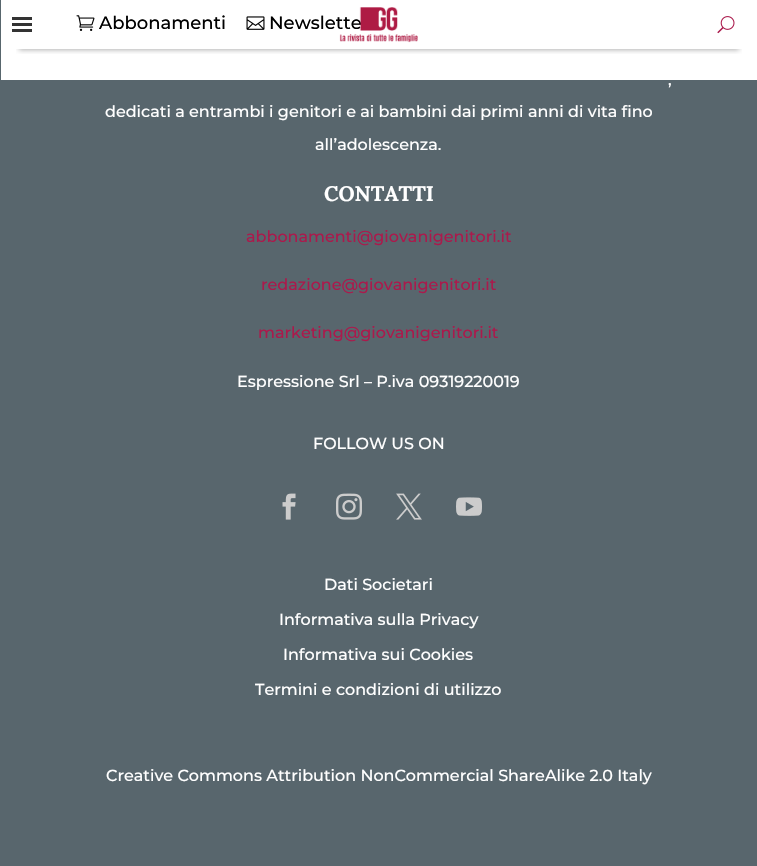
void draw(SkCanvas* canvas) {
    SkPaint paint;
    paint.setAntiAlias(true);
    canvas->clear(0xFF58666D);
    paint.setColor(0xFFFFFFFF);
    canvas->drawRect(SkRect::MakeXYWH(1, 0, 756, 80), paint);
    canvas->save();
    canvas->clipRect(SkRect::MakeXYWH(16, 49, 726, 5));
    paint.setColor(0x4D000000);
    paint.setMaskFilter(SkMaskFilter::MakeBlur(kNormal_SkBlurStyle, 2.5f));
    canvas->drawRect(SkRect::MakeXYWH(19, 15, 720, 35), paint);
    paint.setMaskFilter(nullptr);
    canvas->restore();
    paint.setColor(0xFF333333);
    canvas->drawRect(SkRect::MakeXYWH(12, 17, 20, 3), paint);
    canvas->drawRect(SkRect::MakeXYWH(12, 23, 20, 3), paint);
    canvas->drawRect(SkRect::MakeXYWH(12, 29, 20, 3), paint);
    canvas->drawImageRect(SkImages::DeferredFromEncodedData(SkData::MakeFromFileName("img1.png")), SkRect::MakeXYWH(76, 15, 19, 16), SkSamplingOptions());
    SkFont font1(fontMgr->matchFamilyStyle("Montserrat", SkFontStyle(500, SkFontStyle::kNormal_Width, SkFontStyle::kUpright_Slant)), 18);
    font1.setSubpixel(true);
    paint.setColor(0xFF000000);
    canvas->drawString("Abbonamenti", 99, 29, font1, paint);
    canvas->drawImageRect(SkImages::DeferredFromEncodedData(SkData::MakeFromFileName("img2.png")), SkRect::MakeXYWH(246, 16, 19, 14), SkSamplingOptions());
    canvas->drawString("Newslette", 269, 29, font1, paint);
    canvas->drawImageRect(SkImages::DeferredFromEncodedData(SkData::MakeFromFileName("img3.png")), SkRect::MakeXYWH(339, 7, 79, 36), SkSamplingOptions());
    canvas->drawImageRect(SkImages::DeferredFromEncodedData(SkData::MakeFromFileName("img4.png")), SkRect::MakeXYWH(717, 16, 18, 18), SkSamplingOptions());
    SkFont font2(fontMgr->matchFamilyStyle("Montserrat", SkFontStyle(500, SkFontStyle::kNormal_Width, SkFontStyle::kUpright_Slant)), 16);
    font2.setSubpixel(true);
    paint.setColor(0xFFFFFFFF);
    canvas->drawString(",", 668, 85, font2, paint);
    canvas->drawString("dedicati a entrambi i genitori e ai bambini dai primi anni di vita fino", 105, 117, font2, paint);
    canvas->drawString("all’adolescenza.", 315, 150, font2, paint);
    SkFont font3(fontMgr->matchFamilyStyle("Lora", SkFontStyle::Bold()), 21);
    font3.setSubpixel(true);
    canvas->drawString("CONTATTI", 324, 201, font3, paint);
    paint.setColor(0xFFAA1A4C);
    canvas->drawString("abbonamenti@giovanigenitori.it", 246, 242, font2, paint);
    canvas->drawString("redazione@giovanigenitori.it", 261, 290, font2, paint);
    canvas->drawString("marketing@giovanigenitori.it", 258, 338, font2, paint);
    paint.setColor(0xFFFFFFFF);
    canvas->drawString("Espressione Srl – P.iva 09319220019", 237, 387, font2, paint);
    canvas->drawString("FOLLOW US ON", 313, 449, font2, paint);
    canvas->drawImageRect(SkImages::DeferredFromEncodedData(SkData::MakeFromFileName("img5.png")), SkRect::MakeXYWH(282, 493, 14, 27), SkSamplingOptions());
    canvas->drawImageRect(SkImages::DeferredFromEncodedData(SkData::MakeFromFileName("img6.png")), SkRect::MakeXYWH(336, 493, 26, 27), SkSamplingOptions());
    canvas->drawImageRect(SkImages::DeferredFromEncodedData(SkData::MakeFromFileName("img7.png")), SkRect::MakeXYWH(396, 493, 26, 27), SkSamplingOptions());
    canvas->drawImageRect(SkImages::DeferredFromEncodedData(SkData::MakeFromFileName("img8.png")), SkRect::MakeXYWH(456, 497, 26, 19), SkSamplingOptions());
    canvas->drawString("Dati Societari", 324, 590, font2, paint);
    canvas->drawString("Informativa sulla Privacy", 279, 625, font2, paint);
    canvas->drawString("Informativa sui Cookies", 283, 660, font2, paint);
    canvas->drawString("Termini e condizioni di utilizzo", 255, 695, font2, paint);
    canvas->drawString("Creative Commons Attribution NonCommercial ShareAlike 2.0 Italy", 106, 781, font2, paint);
}
